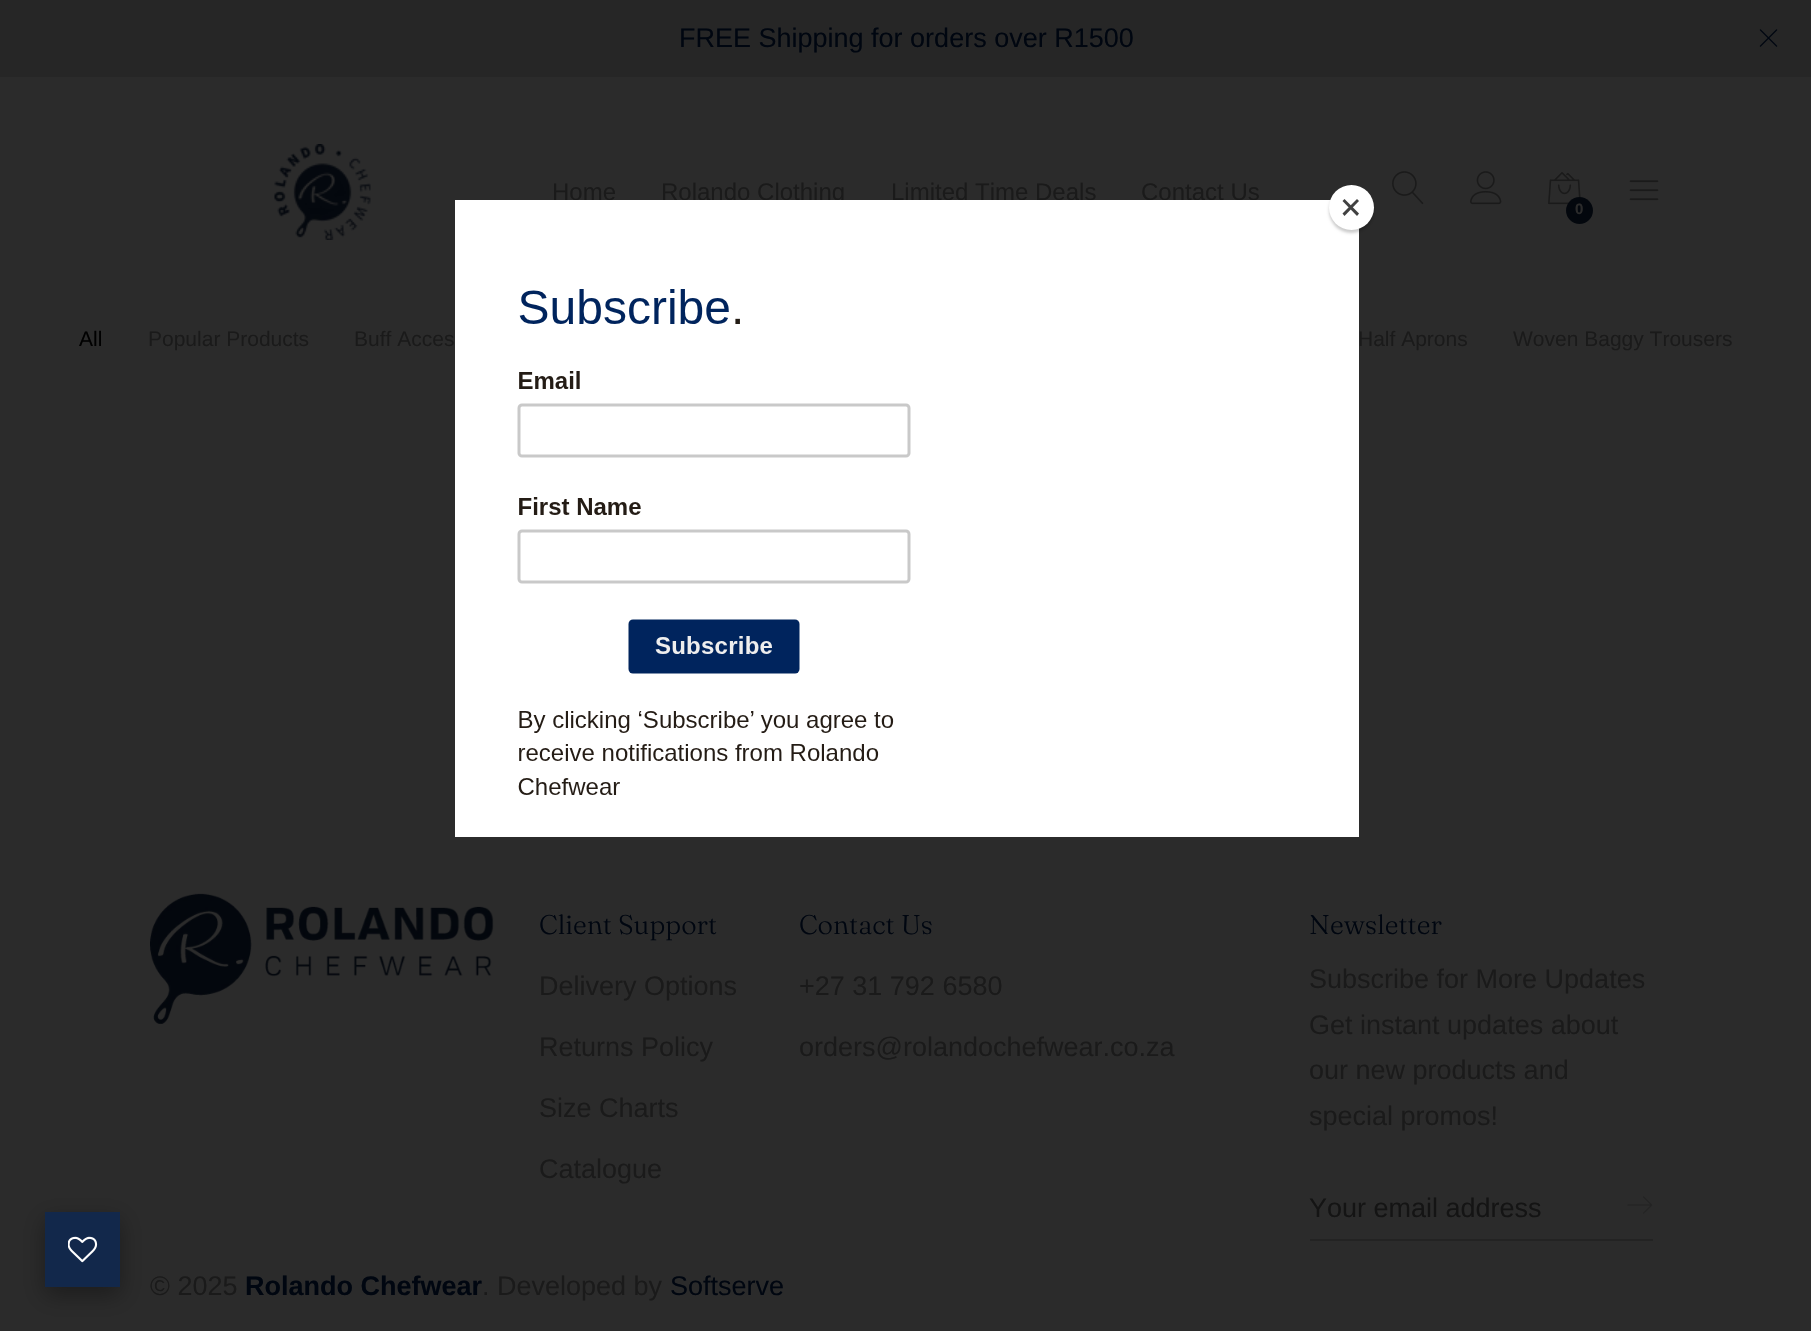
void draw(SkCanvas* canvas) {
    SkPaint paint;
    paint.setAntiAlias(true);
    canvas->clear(0xFF2B2B2B);
    paint.setColor(0xFF262626);
    canvas->drawRect(SkRect::MakeXYWH(0, 0, 1811, 77), paint);
    SkFont font1(fontMgr->matchFamilyStyle("Liberation Sans", SkFontStyle::Normal()), 27);
    font1.setSubpixel(true);
    paint.setColor(0xFF000610);
    canvas->drawString("FREE Shipping for orders over R1500", 679, 47, font1, paint);
    canvas->drawImageRect(SkImages::DeferredFromEncodedData(SkData::MakeFromFileName("img1.png")), SkRect::MakeXYWH(1759, 29, 19, 18), SkSamplingOptions());
    canvas->drawImageRect(SkImages::DeferredFromEncodedData(SkData::MakeFromFileName("img2.png")), SkRect::MakeXYWH(274, 144, 97, 96), SkSamplingOptions());
    SkFont font2(fontMgr->matchFamilyStyle("Liberation Sans", SkFontStyle::Normal()), 24);
    font2.setSubpixel(true);
    paint.setColor(0xFF1A1A1A);
    canvas->drawString("Home", 552, 200, font2, paint);
    canvas->drawString("Rolando Clothing", 661, 200, font2, paint);
    canvas->drawString("Limited Time Deals", 891, 200, font2, paint);
    canvas->drawString("Contact Us", 1141, 200, font2, paint);
    canvas->drawImageRect(SkImages::DeferredFromEncodedData(SkData::MakeFromFileName("img3.png")), SkRect::MakeXYWH(1392, 171, 32, 34), SkSamplingOptions());
    canvas->drawImageRect(SkImages::DeferredFromEncodedData(SkData::MakeFromFileName("img4.png")), SkRect::MakeXYWH(1470, 171, 32, 34), SkSamplingOptions());
    canvas->drawImageRect(SkImages::DeferredFromEncodedData(SkData::MakeFromFileName("img5.png")), SkRect::MakeXYWH(1629, 180, 30, 21), SkSamplingOptions());
    canvas->drawImageRect(SkImages::DeferredFromEncodedData(SkData::MakeFromFileName("img6.png")), SkRect::MakeXYWH(1548, 172, 33, 33), SkSamplingOptions());
    paint.setColor(0xFF03070D);
    canvas->drawCircle(1579.5f, 210.5f, 13.5f, paint);
    SkFont font3(fontMgr->matchFamilyStyle("Liberation Sans", SkFontStyle::Bold()), 15);
    font3.setSubpixel(true);
    paint.setColor(0xFF2B2B2B);
    canvas->drawString("0", 1575, 214, font3, paint);
    SkFont font4(fontMgr->matchFamilyStyle("Liberation Sans", SkFontStyle::Normal()), 21);
    font4.setSubpixel(true);
    paint.setColor(0xFF000000);
    canvas->drawString("All", 79, 346, font4, paint);
    paint.setColor(0xFF1A1A1A);
    canvas->drawString("Popular Products", 148, 346, font4, paint);
    canvas->drawString("Buff Acces", 354, 346, font4, paint);
    canvas->drawString("Half Aprons", 1358, 346, font4, paint);
    canvas->drawString("Woven Baggy Trousers", 1513, 346, font4, paint);
    canvas->drawImageRect(SkImages::DeferredFromEncodedData(SkData::MakeFromFileName("img7.png")), SkRect::MakeXYWH(150, 893, 344, 132), SkSamplingOptions());
    SkFont font5(fontMgr->matchFamilyStyle("Fraunces", SkFontStyle(300, SkFontStyle::kNormal_Width, SkFontStyle::kUpright_Slant)), 27);
    font5.setSubpixel(true);
    paint.setColor(0xFF000610);
    canvas->drawString("Client Support", 539, 934, font5, paint);
    paint.setColor(0xFF1A1A1A);
    canvas->drawString("Delivery Options", 539, 995, font1, paint);
    canvas->drawString("Returns Policy", 539, 1056, font1, paint);
    canvas->drawString("Size Charts", 539, 1117, font1, paint);
    canvas->drawString("Catalogue", 539, 1178, font1, paint);
    paint.setColor(0xFF000610);
    canvas->drawString("Contact Us", 799, 934, font5, paint);
    paint.setColor(0xFF1A1A1A);
    canvas->drawString("+27 31 792 6580", 799, 995, font1, paint);
    canvas->drawString("orders@rolandochefwear.co.za", 799, 1056, font1, paint);
    paint.setColor(0xFF000610);
    canvas->drawString("Newsletter", 1309, 934, font5, paint);
    paint.setColor(0xFF1A1A1A);
    canvas->drawString("Subscribe for More Updates", 1309, 988, font1, paint);
    canvas->drawString("Get instant updates about", 1309, 1034, font1, paint);
    canvas->drawString("our new products and", 1309, 1079, font1, paint);
    canvas->drawString("special promos!", 1309, 1125, font1, paint);
    paint.setColor(0xFF232323);
    canvas->drawRect(SkRect::MakeXYWH(1310, 1239, 343, 2), paint);
    paint.setColor(0xFF141414);
    canvas->drawString("Your email address", 1309, 1217, font1, paint);
    canvas->drawImageRect(SkImages::DeferredFromEncodedData(SkData::MakeFromFileName("img8.png")), SkRect::MakeXYWH(1627, 1196, 26, 18), SkSamplingOptions());
    paint.setColor(0xFF1A1A1A);
    canvas->drawString("© 2025", 150, 1295, font1, paint);
    SkFont font6(fontMgr->matchFamilyStyle("Liberation Sans", SkFontStyle::Bold()), 27);
    font6.setSubpixel(true);
    paint.setColor(0xFF000610);
    canvas->drawString("Rolando Chefwear", 245, 1295, font6, paint);
    paint.setColor(0xFF1A1A1A);
    canvas->drawString(". Developed by", 482, 1295, font1, paint);
    paint.setColor(0xFF000610);
    canvas->drawString("Softserve", 670, 1295, font1, paint);
    canvas->drawImageRect(SkImages::DeferredFromEncodedData(SkData::MakeFromFileName("img9.png")), SkRect::MakeXYWH(455, 200, 904, 637), SkSamplingOptions());
    paint.setColor(0x33000000);
    paint.setMaskFilter(SkMaskFilter::MakeBlur(kNormal_SkBlurStyle, 1.5f));
    canvas->drawRoundRect(SkRect::MakeXYWH(1329, 188, 45, 45), 22.5f, 22.5f, paint);
    paint.setMaskFilter(nullptr);
    paint.setColor(0xFFFFFFFF);
    canvas->drawCircle(1351.5f, 207.5f, 22.5f, paint);
    paint.setColor(0xFF414141);
    canvas->drawPath(SkPathBuilder().moveTo(1357, 199).lineTo(1359, 201).lineTo(1344.5f, 216).lineTo(1342.5f, 213.5f).close().detach(), paint);
    canvas->drawPath(SkPathBuilder().moveTo(1342.5f, 201).lineTo(1344.5f, 199).lineTo(1359, 213.5f).lineTo(1357, 216).close().detach(), paint);
    paint.setColor(0x59000000);
    paint.setMaskFilter(SkMaskFilter::MakeBlur(kNormal_SkBlurStyle, 11));
    canvas->drawRect(SkRect::MakeXYWH(45, 1220, 75, 75), paint);
    paint.setMaskFilter(nullptr);
    paint.setColor(0xFF12284B);
    canvas->drawRect(SkRect::MakeXYWH(45, 1212, 75, 75), paint);
    canvas->drawImageRect(SkImages::DeferredFromEncodedData(SkData::MakeFromFileName("img10.png")), SkRect::MakeXYWH(68, 1236, 30, 27), SkSamplingOptions());
}
